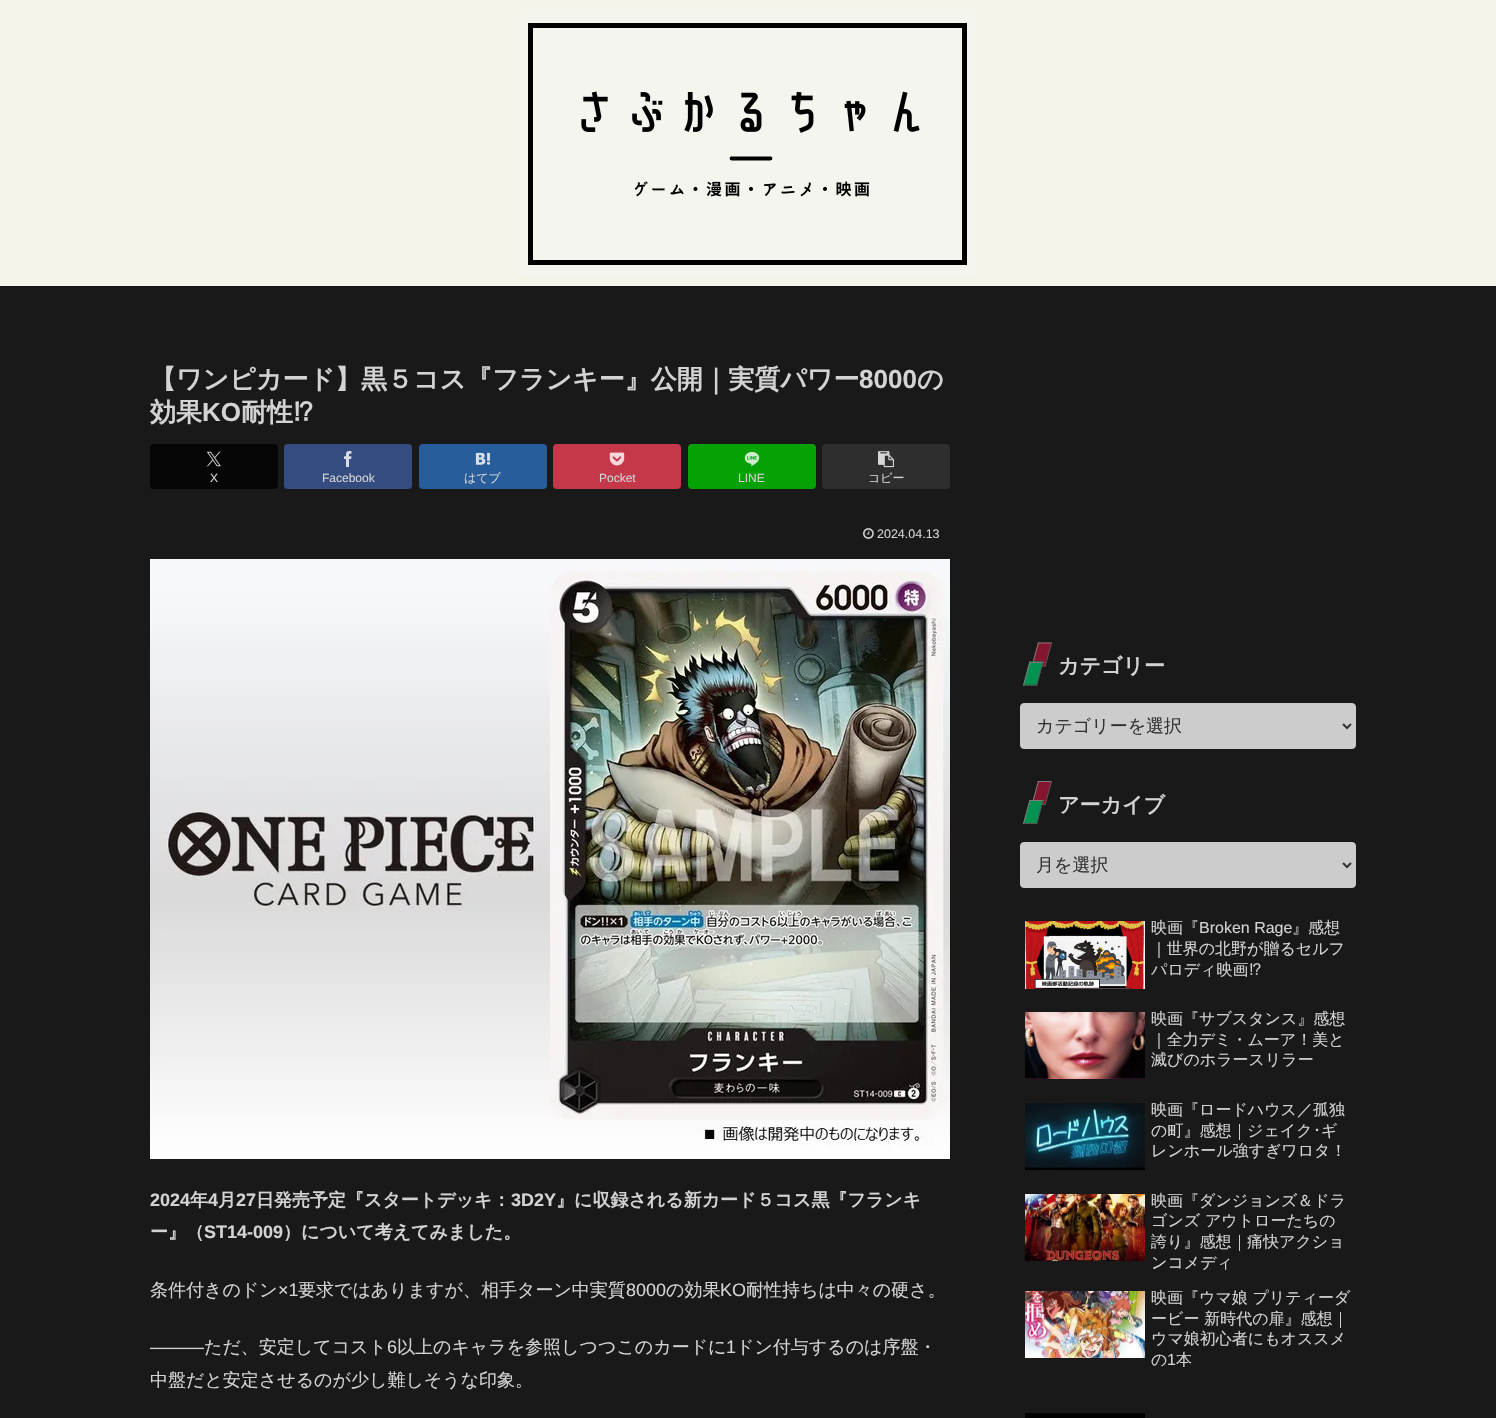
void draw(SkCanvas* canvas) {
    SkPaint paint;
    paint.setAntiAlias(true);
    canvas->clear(0xFF191919);
    paint.setColor(0xFFF5F4EA);
    canvas->drawRect(SkRect::MakeXYWH(0, 0, 1496, 286), paint);
    canvas->drawImageRect(SkImages::DeferredFromEncodedData(SkData::MakeFromFileName("img1.png")), SkRect::MakeXYWH(519, 10, 459, 266), SkSamplingOptions());
    SkFont font1(fontMgr->matchFamilyStyle("WenQuanYi Zen Hei", SkFontStyle::Bold()), 26);
    font1.setSubpixel(true);
    paint.setColor(0xFFD3D3D3);
    canvas->drawString("【ワンピカード】黒５コス『フランキー』公開｜実質パワー", 150, 388, font1, paint);
    SkFont font2(fontMgr->matchFamilyStyle("Liberation Sans", SkFontStyle::Bold()), 26);
    font2.setSubpixel(true);
    canvas->drawString("8000", 859, 388, font2, paint);
    canvas->drawString("の", 917, 388, font1, paint);
    canvas->drawString("効果", 150, 421, font1, paint);
    canvas->drawString("KO", 202, 421, font2, paint);
    canvas->drawString("耐性", 241, 421, font1, paint);
    SkFont font3(fontMgr->matchFamilyStyle("IPAPGothic", SkFontStyle::Bold()), 26);
    font3.setSubpixel(true);
    canvas->drawString("⁉", 293, 421, font3, paint);
    paint.setColor(0xFF050505);
    canvas->drawRoundRect(SkRect::MakeXYWH(150, 444, 128, 45), 4, 4, paint);
    canvas->drawImageRect(SkImages::DeferredFromEncodedData(SkData::MakeFromFileName("img2.png")), SkRect::MakeXYWH(206, 451, 15, 16), SkSamplingOptions());
    SkFont font4(fontMgr->matchFamilyStyle("Liberation Sans", SkFontStyle::Normal()), 12);
    font4.setSubpixel(true);
    paint.setColor(0xFFD3D3D3);
    canvas->drawString("X", 210, 482, font4, paint);
    paint.setColor(0xFF344C7F);
    canvas->drawRoundRect(SkRect::MakeXYWH(284, 444, 128, 45), 4, 4, paint);
    canvas->drawImageRect(SkImages::DeferredFromEncodedData(SkData::MakeFromFileName("img3.png")), SkRect::MakeXYWH(344, 451, 8, 16), SkSamplingOptions());
    paint.setColor(0xFFD3D3D3);
    canvas->drawString("Facebook", 322, 482, font4, paint);
    paint.setColor(0xFF285D9C);
    canvas->drawRoundRect(SkRect::MakeXYWH(419, 444, 128, 45), 4, 4, paint);
    canvas->drawImageRect(SkImages::DeferredFromEncodedData(SkData::MakeFromFileName("img4.png")), SkRect::MakeXYWH(475, 452, 16, 13), SkSamplingOptions());
    SkFont font5(fontMgr->matchFamilyStyle("WenQuanYi Zen Hei", SkFontStyle(500, SkFontStyle::kNormal_Width, SkFontStyle::kUpright_Slant)), 12);
    font5.setSubpixel(true);
    paint.setColor(0xFFD3D3D3);
    canvas->drawString("はてブ", 464, 482, font5, paint);
    paint.setColor(0xFFC4384A);
    canvas->drawRoundRect(SkRect::MakeXYWH(553, 444, 128, 45), 4, 4, paint);
    canvas->drawImageRect(SkImages::DeferredFromEncodedData(SkData::MakeFromFileName("img5.png")), SkRect::MakeXYWH(609, 452, 16, 14), SkSamplingOptions());
    paint.setColor(0xFFD3D3D3);
    canvas->drawString("Pocket", 599, 482, font4, paint);
    paint.setColor(0xFF05A105);
    canvas->drawRoundRect(SkRect::MakeXYWH(688, 444, 128, 45), 4, 4, paint);
    canvas->drawImageRect(SkImages::DeferredFromEncodedData(SkData::MakeFromFileName("img6.png")), SkRect::MakeXYWH(744, 452, 16, 14), SkSamplingOptions());
    paint.setColor(0xFFD3D3D3);
    canvas->drawString("LINE", 738, 482, font4, paint);
    paint.setColor(0xFF2E2E2E);
    canvas->drawRoundRect(SkRect::MakeXYWH(822, 444, 128, 45), 4, 4, paint);
    canvas->drawImageRect(SkImages::DeferredFromEncodedData(SkData::MakeFromFileName("img7.png")), SkRect::MakeXYWH(878, 451, 16, 17), SkSamplingOptions());
    paint.setColor(0xFFD3D3D3);
    canvas->drawString("コピー", 868, 482, font5, paint);
    canvas->drawImageRect(SkImages::DeferredFromEncodedData(SkData::MakeFromFileName("img8.png")), SkRect::MakeXYWH(863, 528, 11, 11), SkSamplingOptions());
    SkFont font6(fontMgr->matchFamilyStyle("Liberation Sans", SkFontStyle::Normal()), 12.5f);
    font6.setSubpixel(true);
    canvas->drawString("2024.04.13", 877, 538, font6, paint);
    canvas->drawImageRect(SkImages::DeferredFromEncodedData(SkData::MakeFromFileName("img9.png")), SkRect::MakeXYWH(150, 559, 800, 600), SkSamplingOptions());
    SkFont font7(fontMgr->matchFamilyStyle("Liberation Sans", SkFontStyle::Bold()), 18);
    font7.setSubpixel(true);
    canvas->drawString("2024", 150, 1206, font7, paint);
    SkFont font8(fontMgr->matchFamilyStyle("WenQuanYi Zen Hei", SkFontStyle::Bold()), 18);
    font8.setSubpixel(true);
    canvas->drawString("年", 190, 1206, font8, paint);
    canvas->drawString("4", 208, 1206, font7, paint);
    canvas->drawString("月", 218, 1206, font8, paint);
    canvas->drawString("27", 236, 1206, font7, paint);
    canvas->drawString("日発売予定『スタートデッキ：", 256, 1206, font8, paint);
    canvas->drawString("3D2Y", 511, 1206, font7, paint);
    canvas->drawString("』に収録される新カード５コス黒『フランキ", 556, 1206, font8, paint);
    canvas->drawString("ー』（", 150, 1238, font8, paint);
    canvas->drawString("ST14-009", 204, 1238, font7, paint);
    canvas->drawString("）について考えてみました。", 283, 1238, font8, paint);
    SkFont font9(fontMgr->matchFamilyStyle("WenQuanYi Zen Hei", SkFontStyle(500, SkFontStyle::kNormal_Width, SkFontStyle::kUpright_Slant)), 18);
    font9.setSubpixel(true);
    canvas->drawString("条件付きのドン", 150, 1296, font9, paint);
    SkFont font10(fontMgr->matchFamilyStyle("Liberation Sans", SkFontStyle::Normal()), 18);
    font10.setSubpixel(true);
    canvas->drawString("×1", 278, 1296, font10, paint);
    canvas->drawString("要求ではありますが、相手ターン中実質", 298, 1296, font9, paint);
    canvas->drawString("8000", 626, 1296, font10, paint);
    canvas->drawString("の効果", 666, 1296, font9, paint);
    canvas->drawString("KO", 720, 1296, font10, paint);
    canvas->drawString("耐性持ちは中々の硬さ。", 746, 1296, font9, paint);
    canvas->drawString("―――", 150, 1353, font10, paint);
    canvas->drawString("ただ、安定してコスト", 204, 1353, font9, paint);
    canvas->drawString("6", 387, 1353, font10, paint);
    canvas->drawString("以上のキャラを参照しつつこのカードに", 397, 1353, font9, paint);
    canvas->drawString("1", 726, 1353, font10, paint);
    canvas->drawString("ドン付与するのは序盤・", 736, 1353, font9, paint);
    canvas->drawString("中盤だと安定させるのが少し難しそうな印象。", 150, 1386, font9, paint);
    paint.setColor(0xFF84172F);
    canvas->drawPath(SkPathBuilder().moveTo(1038, 642.5f).lineTo(1052, 642.5f).lineTo(1045.5f, 666.5f).lineTo(1031.5f, 666.5f).close().detach(), paint);
    paint.setColor(0xFF817B7B);
    canvas->drawPath(SkPathBuilder().moveTo(1038, 642.5f).lineTo(1052, 642.5f).lineTo(1051.5f, 643.5f).lineTo(1037.5f, 643.5f).close().detach(), paint);
    paint.setColor(0xFF565252);
    canvas->drawPath(SkPathBuilder().moveTo(1051, 642.5f).lineTo(1052, 642.5f).lineTo(1045.5f, 666.5f).lineTo(1044.5f, 666.5f).close().detach(), paint);
    canvas->drawPath(SkPathBuilder().moveTo(1032, 665.5f).lineTo(1046, 665.5f).lineTo(1045.5f, 666.5f).lineTo(1031.5f, 666.5f).close().detach(), paint);
    paint.setColor(0xFF817B7B);
    canvas->drawPath(SkPathBuilder().moveTo(1038, 642.5f).lineTo(1039, 642.5f).lineTo(1032.5f, 666.5f).lineTo(1031.5f, 666.5f).close().detach(), paint);
    SkFont font11(fontMgr->matchFamilyStyle("WenQuanYi Zen Hei", SkFontStyle::Bold()), 21);
    font11.setSubpixel(true);
    paint.setColor(0xFFD3D3D3);
    canvas->drawString("カテゴリー", 1058, 673, font11, paint);
    paint.setColor(0xFF009250);
    canvas->drawPath(SkPathBuilder().moveTo(1029.5f, 661.5f).lineTo(1043.5f, 661.5f).lineTo(1037, 685.5f).lineTo(1023, 685.5f).close().detach(), paint);
    paint.setColor(0xFF817B7B);
    canvas->drawRect(SkRect::MakeXYWH(1030, 662, 14, 1), paint);
    paint.setColor(0xFF565252);
    canvas->drawPath(SkPathBuilder().moveTo(1042.5f, 661.5f).lineTo(1043.5f, 661.5f).lineTo(1037, 685.5f).lineTo(1036, 685.5f).close().detach(), paint);
    canvas->drawPath(SkPathBuilder().moveTo(1023.5f, 684.5f).lineTo(1037.5f, 684.5f).lineTo(1037, 685.5f).lineTo(1023, 685.5f).close().detach(), paint);
    paint.setColor(0xFF817B7B);
    canvas->drawPath(SkPathBuilder().moveTo(1029.5f, 661.5f).lineTo(1030.5f, 661.5f).lineTo(1024, 685.5f).lineTo(1023, 685.5f).close().detach(), paint);
    paint.setColor(0xFFCCCCCC);
    canvas->drawRoundRect(SkRect::MakeXYWH(1020.5f, 703.5f, 335, 45), 3.5f, 3.5f, paint);
    paint.setStyle(SkPaint::kStroke_Style);
    paint.setStrokeWidth(1);
    canvas->drawRoundRect(SkRect::MakeXYWH(1020.5f, 703.5f, 335, 45), 3.5f, 3.5f, paint);
    paint.setStrokeWidth(2);
    paint.setColor(0xFF333333);
    canvas->drawPath(SkPathBuilder().moveTo(1343, 724).lineTo(1347, 728).lineTo(1351, 724).detach(), paint);
    paint.setStyle(SkPaint::kFill_Style);
    canvas->drawString("カテゴリーを選択", 1036, 732, font9, paint);
    paint.setColor(0xFF84172F);
    canvas->drawPath(SkPathBuilder().moveTo(1038, 781).lineTo(1052, 781).lineTo(1045.5f, 805).lineTo(1031.5f, 805).close().detach(), paint);
    paint.setColor(0xFF817B7B);
    canvas->drawPath(SkPathBuilder().moveTo(1038, 781).lineTo(1052, 781).lineTo(1051.5f, 782).lineTo(1037.5f, 782).close().detach(), paint);
    paint.setColor(0xFF565252);
    canvas->drawPath(SkPathBuilder().moveTo(1051, 781).lineTo(1052, 781).lineTo(1045.5f, 805).lineTo(1044.5f, 805).close().detach(), paint);
    canvas->drawPath(SkPathBuilder().moveTo(1032, 804).lineTo(1046, 804).lineTo(1045.5f, 805).lineTo(1031.5f, 805).close().detach(), paint);
    paint.setColor(0xFF817B7B);
    canvas->drawPath(SkPathBuilder().moveTo(1038, 781).lineTo(1039, 781).lineTo(1032.5f, 805).lineTo(1031.5f, 805).close().detach(), paint);
    paint.setColor(0xFFD3D3D3);
    canvas->drawString("アーカイブ", 1058, 812, font11, paint);
    paint.setColor(0xFF009250);
    canvas->drawPath(SkPathBuilder().moveTo(1029.5f, 800).lineTo(1043.5f, 800).lineTo(1037, 824).lineTo(1023, 824).close().detach(), paint);
    paint.setColor(0xFF817B7B);
    canvas->drawRect(SkRect::MakeXYWH(1030, 800, 14, 1), paint);
    paint.setColor(0xFF565252);
    canvas->drawPath(SkPathBuilder().moveTo(1042.5f, 800).lineTo(1043.5f, 800).lineTo(1037, 824).lineTo(1036, 824).close().detach(), paint);
    canvas->drawPath(SkPathBuilder().moveTo(1023.5f, 823).lineTo(1037.5f, 823).lineTo(1037, 824).lineTo(1023, 824).close().detach(), paint);
    paint.setColor(0xFF817B7B);
    canvas->drawPath(SkPathBuilder().moveTo(1029.5f, 800).lineTo(1030.5f, 800).lineTo(1024, 824).lineTo(1023, 824).close().detach(), paint);
    paint.setColor(0xFFCCCCCC);
    canvas->drawRoundRect(SkRect::MakeXYWH(1020.5f, 842.5f, 335, 45), 3.5f, 3.5f, paint);
    paint.setStyle(SkPaint::kStroke_Style);
    paint.setStrokeWidth(1);
    canvas->drawRoundRect(SkRect::MakeXYWH(1020.5f, 842.5f, 335, 45), 3.5f, 3.5f, paint);
    paint.setStrokeWidth(2);
    paint.setColor(0xFF333333);
    canvas->drawPath(SkPathBuilder().moveTo(1343, 863).lineTo(1347, 867).lineTo(1351, 863).detach(), paint);
    paint.setStyle(SkPaint::kFill_Style);
    canvas->drawString("月を選択", 1036, 871, font9, paint);
    canvas->drawImageRect(SkImages::DeferredFromEncodedData(SkData::MakeFromFileName("img10.png")), SkRect::MakeXYWH(1025, 921, 120, 68), SkSamplingOptions());
    SkFont font12(fontMgr->matchFamilyStyle("WenQuanYi Zen Hei", SkFontStyle(500, SkFontStyle::kNormal_Width, SkFontStyle::kUpright_Slant)), 16);
    font12.setSubpixel(true);
    paint.setColor(0xFFD3D3D3);
    canvas->drawString("映画『", 1151, 933, font12, paint);
    SkFont font13(fontMgr->matchFamilyStyle("Liberation Sans", SkFontStyle::Normal()), 16);
    font13.setSubpixel(true);
    canvas->drawString("Broken Rage", 1199, 933, font13, paint);
    canvas->drawString("』感想", 1292, 933, font12, paint);
    canvas->drawString("｜世界の北野が贈るセルフ", 1151, 954, font12, paint);
    canvas->drawString("パロディ映画", 1151, 975, font12, paint);
    SkFont font14(fontMgr->matchFamilyStyle("IPAPGothic", SkFontStyle::Normal()), 16);
    font14.setSubpixel(true);
    canvas->drawString("⁉", 1249, 975, font14, paint);
    canvas->drawImageRect(SkImages::DeferredFromEncodedData(SkData::MakeFromFileName("img11.png")), SkRect::MakeXYWH(1025, 1012, 120, 67), SkSamplingOptions());
    canvas->drawString("映画『サブスタンス』感想", 1151, 1024, font12, paint);
    canvas->drawString("｜全力デミ・ムーア！美と", 1151, 1045, font12, paint);
    canvas->drawString("滅びのホラースリラー", 1151, 1065, font12, paint);
    canvas->drawImageRect(SkImages::DeferredFromEncodedData(SkData::MakeFromFileName("img12.png")), SkRect::MakeXYWH(1025, 1103, 120, 67), SkSamplingOptions());
    canvas->drawString("映画『ロードハウス／孤独", 1151, 1115, font12, paint);
    canvas->drawString("の町』感想｜ジェイク", 1151, 1136, font12, paint);
    canvas->drawString("･", 1313, 1136, font14, paint);
    canvas->drawString("ギ", 1321, 1136, font12, paint);
    canvas->drawString("レンホール強すぎワロタ！", 1151, 1156, font12, paint);
    canvas->drawImageRect(SkImages::DeferredFromEncodedData(SkData::MakeFromFileName("img13.png")), SkRect::MakeXYWH(1025, 1194, 120, 67), SkSamplingOptions());
    canvas->drawString("映画『ダンジョンズ＆ドラ", 1151, 1206, font12, paint);
    canvas->drawString("ゴンズ アウトローたちの", 1151, 1226, font12, paint);
    canvas->drawString("誇り』感想｜痛快アクショ", 1151, 1247, font12, paint);
    canvas->drawString("ンコメディ", 1151, 1268, font12, paint);
    canvas->drawImageRect(SkImages::DeferredFromEncodedData(SkData::MakeFromFileName("img14.png")), SkRect::MakeXYWH(1025, 1291, 120, 67), SkSamplingOptions());
    canvas->drawString("映画『ウマ娘 プリティーダ", 1151, 1303, font12, paint);
    canvas->drawString("ービー 新時代の扉』感想｜", 1151, 1324, font12, paint);
    canvas->drawString("ウマ娘初心者にもオススメ", 1151, 1344, font12, paint);
    canvas->drawString("の", 1151, 1365, font12, paint);
    canvas->drawString("1", 1167, 1365, font13, paint);
    canvas->drawString("本", 1176, 1365, font12, paint);
    paint.setColor(0xFF000000);
    canvas->drawRect(SkRect::MakeXYWH(1025, 1413, 120, 5), paint);
}
